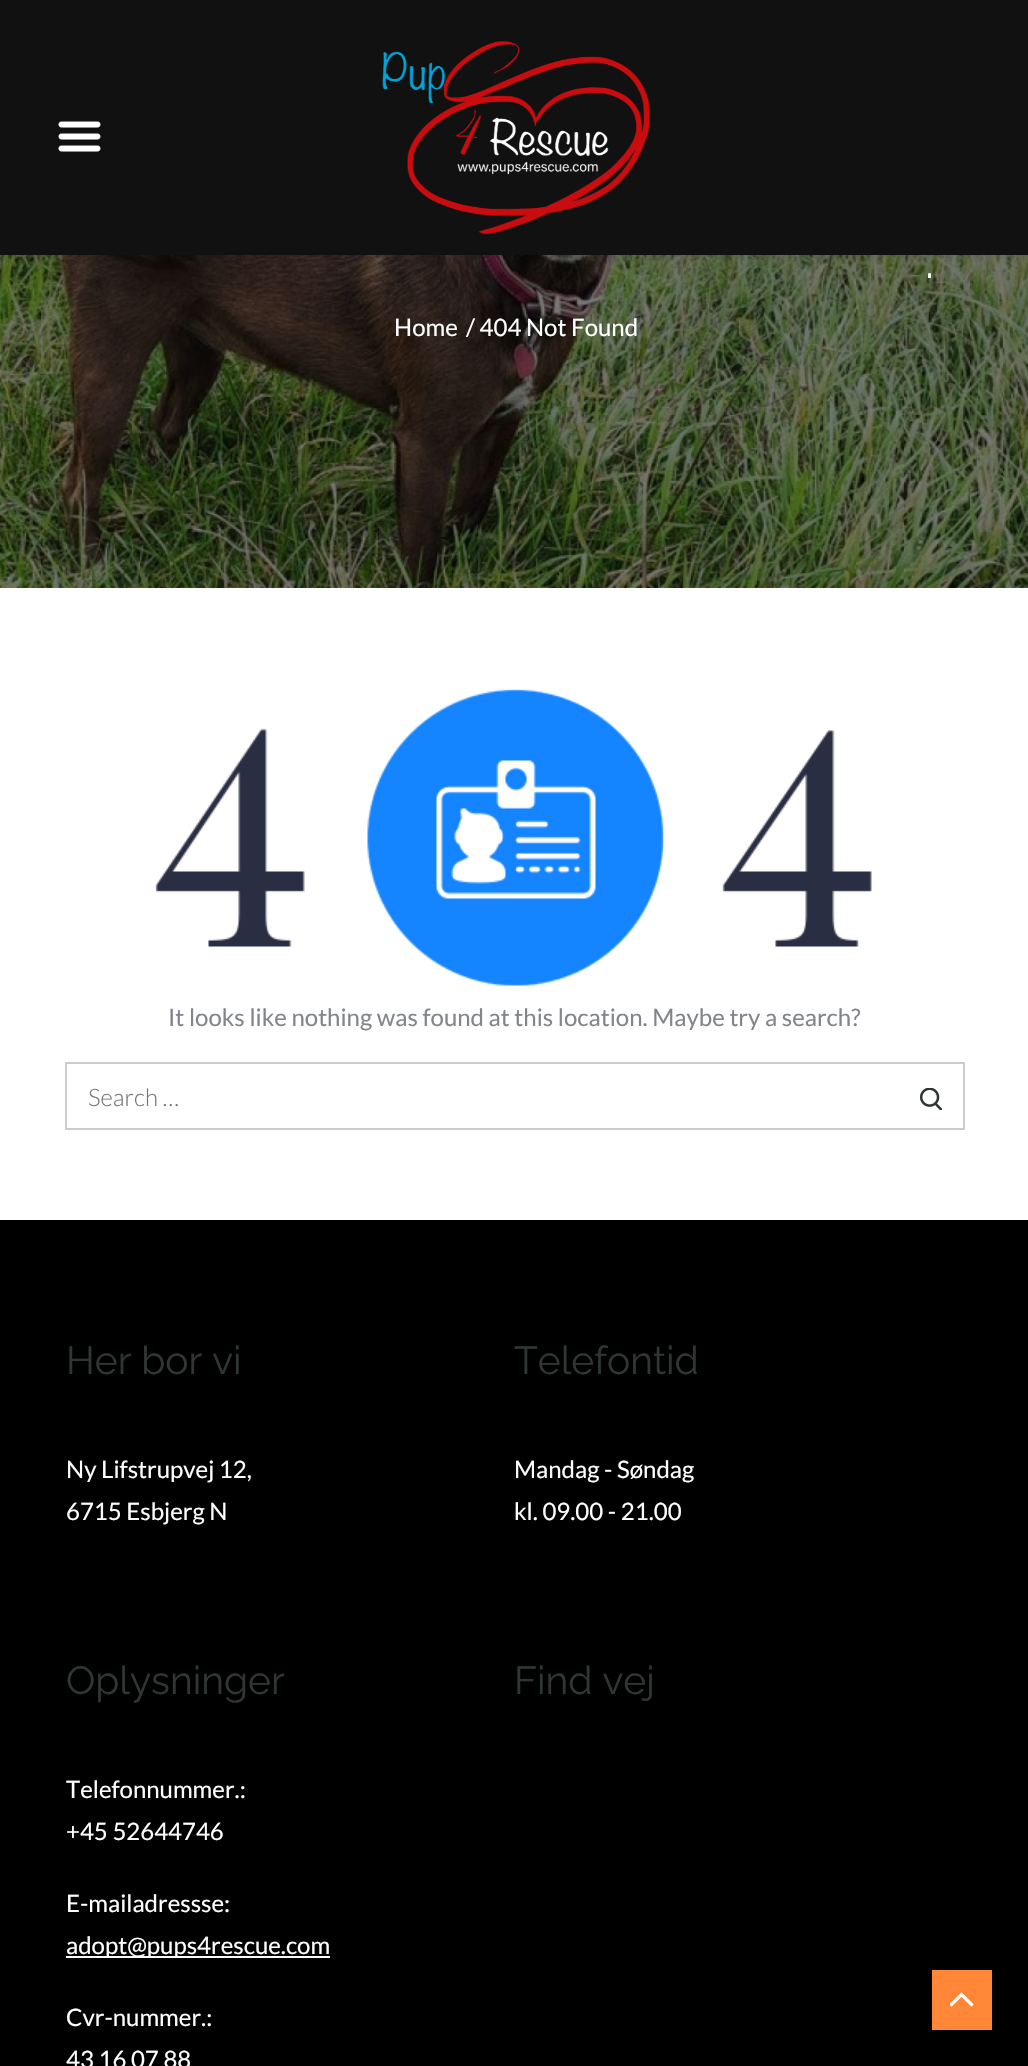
void draw(SkCanvas* canvas) {
    SkPaint paint;
    paint.setAntiAlias(true);
    canvas->clear(0xFFFFFFFF);
    canvas->drawImageRect(SkImages::DeferredFromEncodedData(SkData::MakeFromFileName("img3.png")), SkRect::MakeXYWH(0, 255, 1028, 333), SkSamplingOptions());
    paint.setColor(0x26000000);
    paint.setMaskFilter(SkMaskFilter::MakeBlur(kNormal_SkBlurStyle, 6));
    canvas->drawRect(SkRect::MakeXYWH(0, 0, 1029, 255), paint);
    paint.setMaskFilter(nullptr);
    paint.setColor(0xFF111111);
    canvas->drawRect(SkRect::MakeXYWH(0, 0, 1028, 255), paint);
    canvas->drawImageRect(SkImages::DeferredFromEncodedData(SkData::MakeFromFileName("img1.png")), SkRect::MakeXYWH(58, 121, 43, 31), SkSamplingOptions());
    canvas->drawImageRect(SkImages::DeferredFromEncodedData(SkData::MakeFromFileName("img2.png")), SkRect::MakeXYWH(382, 41, 268, 194), SkSamplingOptions());
    SkFont font1(fontMgr->matchFamilyStyle("Raleway", SkFontStyle::Normal()), 48);
    font1.setSubpixel(true);
    paint.setColor(0xFFFFFFFF);
    canvas->drawString(".", 925, 278, font1, paint);
    SkFont font2(fontMgr->matchFamilyStyle("Lato", SkFontStyle::Normal()), 24);
    font2.setSubpixel(true);
    canvas->drawString("Home", 394, 336, font2, paint);
    canvas->drawString("/ 404 Not Found", 466, 336, font2, paint);
    canvas->drawImageRect(SkImages::DeferredFromEncodedData(SkData::MakeFromFileName("img4.png")), SkRect::MakeXYWH(155, 689, 717, 297), SkSamplingOptions());
    paint.setColor(0xFF82868B);
    canvas->drawString("It looks like nothing was found at this location. Maybe try a search?", 168, 1026, font2, paint);
    paint.setStyle(SkPaint::kStroke_Style);
    paint.setStrokeWidth(2);
    paint.setColor(0xFFCCCCCC);
    canvas->drawRect(SkRect::MakeXYWH(66, 1063, 898, 66), paint);
    SkFont font3(fontMgr->matchFamilyStyle("Lato", SkFontStyle(300, SkFontStyle::kNormal_Width, SkFontStyle::kUpright_Slant)), 24);
    font3.setSubpixel(true);
    paint.setStyle(SkPaint::kFill_Style);
    paint.setColor(0xFF757575);
    canvas->drawString("Search …", 88, 1106, font3, paint);
    canvas->drawImageRect(SkImages::DeferredFromEncodedData(SkData::MakeFromFileName("img5.png")), SkRect::MakeXYWH(920, 1088, 22, 22), SkSamplingOptions());
    paint.setColor(0xFF000000);
    canvas->drawRect(SkRect::MakeXYWH(0, 1220, 1028, 846), paint);
    SkFont font4(fontMgr->matchFamilyStyle("Raleway", SkFontStyle::Normal()), 39);
    font4.setSubpixel(true);
    paint.setColor(0xFF2F3633);
    canvas->drawString("Her bor vi", 66, 1374, font4, paint);
    paint.setColor(0xFFFFFFFF);
    canvas->drawString("Ny Lifstrupvej 12,", 66, 1478, font2, paint);
    canvas->drawString("6715 Esbjerg N", 66, 1520, font2, paint);
    paint.setColor(0xFF2F3633);
    canvas->drawString("Telefontid", 514, 1374, font4, paint);
    paint.setColor(0xFFFFFFFF);
    canvas->drawString("Mandag - Søndag", 514, 1478, font2, paint);
    canvas->drawString("kl. 09.00 - 21.00", 514, 1520, font2, paint);
    paint.setColor(0xFF2F3633);
    canvas->drawString("Oplysninger", 66, 1694, font4, paint);
    paint.setColor(0xFFFFFFFF);
    canvas->drawString("Telefonnummer.:", 66, 1798, font2, paint);
    canvas->drawString("+45 52644746", 66, 1840, font2, paint);
    canvas->drawString("E-mailadressse:", 66, 1912, font2, paint);
    canvas->drawRect(SkRect::MakeXYWH(66, 1956, 264, 2), paint);
    canvas->drawString("adopt@pups4rescue.com", 66, 1954, font2, paint);
    canvas->drawString("Cvr-nummer.:", 66, 2026, font2, paint);
    canvas->drawString("43 16 07 88", 66, 2068, font2, paint);
    paint.setColor(0xFF2F3633);
    canvas->drawString("Find vej", 514, 1694, font4, paint);
    paint.setColor(0xFFFF8737);
    canvas->drawRect(SkRect::MakeXYWH(932, 1970, 60, 60), paint);
    canvas->drawImageRect(SkImages::DeferredFromEncodedData(SkData::MakeFromFileName("img6.png")), SkRect::MakeXYWH(950, 1992, 24, 15), SkSamplingOptions());
}
